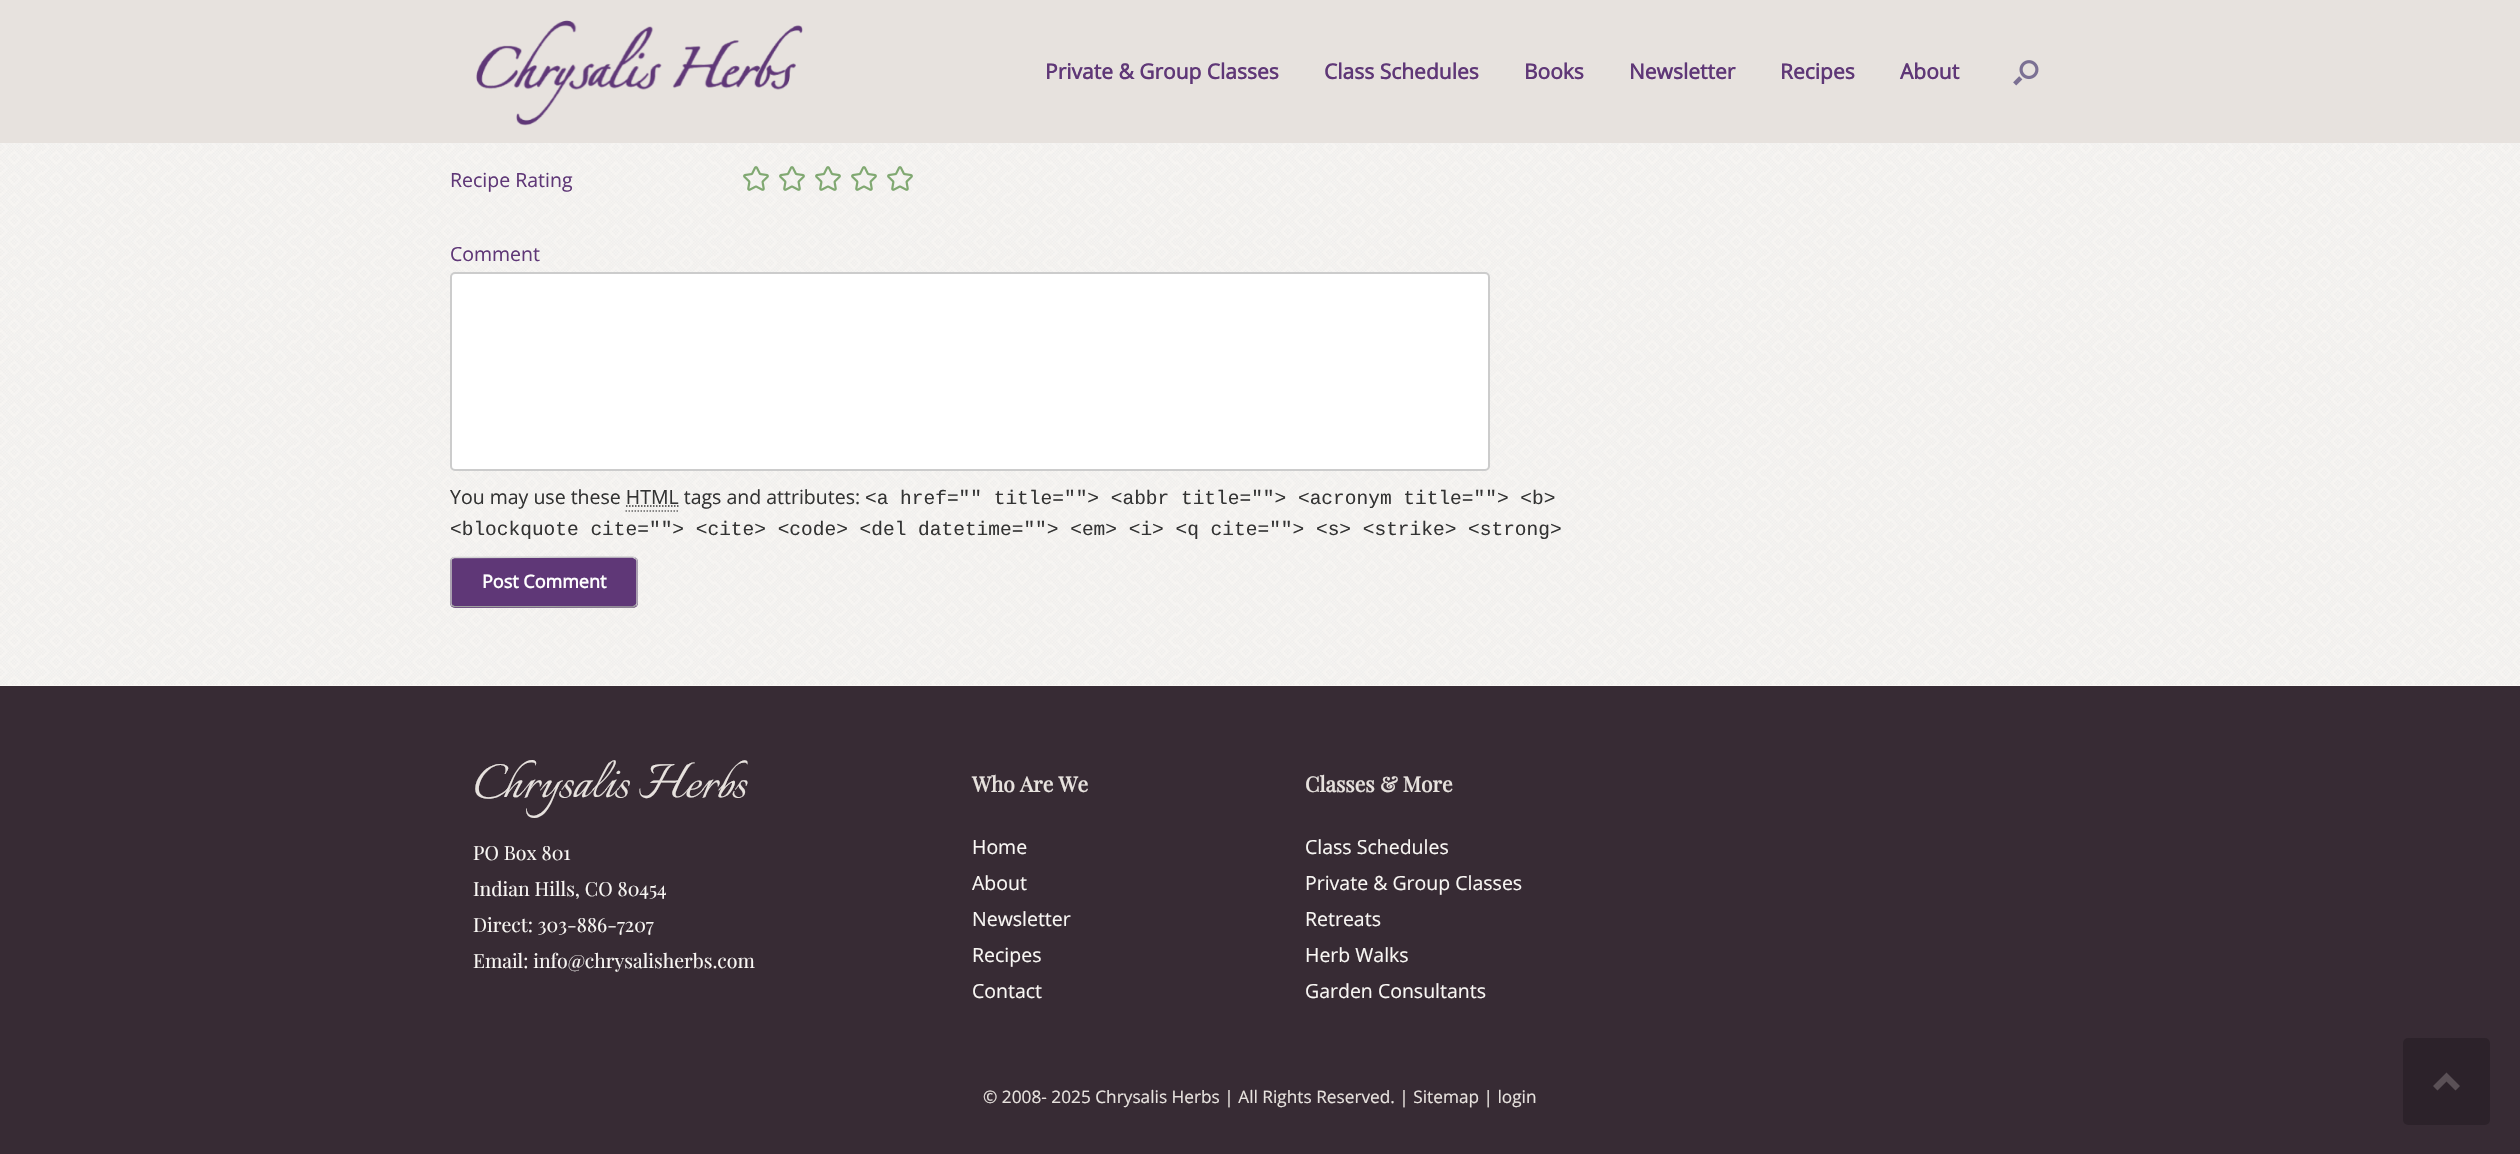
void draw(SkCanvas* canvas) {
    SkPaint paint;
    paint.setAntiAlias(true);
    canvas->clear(0xFF372B34);
    paint.setColor(0xFFE7E2DE);
    canvas->drawRect(SkRect::MakeXYWH(0, 0, 2520, 143), paint);
    canvas->drawImageRect(SkImages::DeferredFromEncodedData(SkData::MakeFromFileName("img1.png")), SkRect::MakeXYWH(476, 20, 327, 106), SkSamplingOptions());
    SkFont font1(fontMgr->matchFamilyStyle("Open Sans", SkFontStyle::Bold()), 21);
    font1.setSubpixel(true);
    paint.setColor(0xFF5F3777);
    canvas->drawString("Private & Group Classes", 1045, 79, font1, paint);
    canvas->drawString("Class Schedules", 1324, 79, font1, paint);
    canvas->drawString("Books", 1524, 79, font1, paint);
    canvas->drawString("Newsletter", 1629, 79, font1, paint);
    canvas->drawString("Recipes", 1780, 79, font1, paint);
    canvas->drawString("About", 1900, 79, font1, paint);
    canvas->drawImageRect(SkImages::DeferredFromEncodedData(SkData::MakeFromFileName("img2.png")), SkRect::MakeXYWH(2013, 60, 26, 26), SkSamplingOptions());
    paint.setColor(0xFFF9F7F4);
    canvas->drawRect(SkRect::MakeXYWH(0, 143, 2520, 543), paint);
    canvas->drawImageRect(SkImages::DeferredFromEncodedData(SkData::MakeFromFileName("img3.png")), SkRect::MakeXYWH(0, 143, 2520, 542), SkSamplingOptions());
    SkFont font2(fontMgr->matchFamilyStyle("Open Sans", SkFontStyle::Normal()), 19.5f);
    font2.setSubpixel(true);
    paint.setColor(0xFF5F3777);
    canvas->drawString("Recipe Rating", 450, 187, font2, paint);
    canvas->drawImageRect(SkImages::DeferredFromEncodedData(SkData::MakeFromFileName("img4.png")), SkRect::MakeXYWH(743, 166, 170, 25), SkSamplingOptions());
    canvas->drawString("Comment", 450, 261, font2, paint);
    paint.setColor(0xFFFFFFFF);
    canvas->drawRoundRect(SkRect::MakeXYWH(451, 273, 1038, 197), 4, 4, paint);
    paint.setStyle(SkPaint::kStroke_Style);
    paint.setStrokeWidth(2);
    paint.setColor(0xFFCCCCCC);
    canvas->drawRoundRect(SkRect::MakeXYWH(451, 273, 1038, 197), 4, 4, paint);
    paint.setStyle(SkPaint::kFill_Style);
    paint.setColor(0xFF333333);
    canvas->drawString("You may use these HTML tags and attributes:", 450, 504, font2, paint);
    SkFont font3(fontMgr->matchFamilyStyle("Liberation Mono", SkFontStyle::Normal()), 19.5f);
    font3.setSubpixel(true);
    canvas->drawString("<a href=\"\" title=\"\"> <abbr title=\"\"> <acronym title=\"\"> <b>", 865, 504, font3, paint);
    paint.setStyle(SkPaint::kStroke_Style);
    paint.setStrokeWidth(1.5f);
    paint.setPathEffect(SkDashPathEffect::Make({{1.5f, 1.5f}}, 0));
    canvas->drawPath(SkPathBuilder().moveTo(626, 506).lineTo(678.5f, 506).detach(), paint);
    paint.setPathEffect(nullptr);
    paint.setColor(0xFF666666);
    paint.setPathEffect(SkDashPathEffect::Make({{1.5f, 1.5f}}, 0));
    canvas->drawPath(SkPathBuilder().moveTo(625.5f, 511).lineTo(678, 511).detach(), paint);
    paint.setPathEffect(nullptr);
    paint.setStyle(SkPaint::kFill_Style);
    paint.setColor(0xFF333333);
    canvas->drawString("<blockquote cite=\"\"> <cite> <code> <del datetime=\"\"> <em> <i> <q cite=\"\"> <s> <strike> <strong>", 450, 535, font3, paint);
    paint.setColor(0xFF5F3777);
    canvas->drawRoundRect(SkRect::MakeXYWH(450, 557, 188, 51), 5, 5, paint);
    paint.setStyle(SkPaint::kStroke_Style);
    paint.setColor(0xFFD2D2D2);
    canvas->drawPath(SkPathBuilder().moveTo(452, 558.5f).lineTo(454, 557.5f).lineTo(603, 557).lineTo(633, 557).lineTo(635.5f, 558.5f).detach(), paint);
    paint.setColor(0xFFC3C3C3);
    canvas->drawPath(SkPathBuilder().moveTo(635.5f, 558.5f).cubicTo(636.5f, 559, 637, 560, 637, 561).lineTo(637, 603).cubicTo(637, 604, 636.5f, 605, 635.5f, 605.5f).detach(), paint);
    paint.setColor(0xFF9F9F9F);
    canvas->drawPath(SkPathBuilder().moveTo(635.5f, 605.5f).lineTo(633, 607).lineTo(454, 606.5f).lineTo(452, 605.5f).detach(), paint);
    paint.setColor(0xFFC3C3C3);
    canvas->drawPath(SkPathBuilder().moveTo(452, 605.5f).cubicTo(451, 605, 451, 604, 451, 603).lineTo(451, 561).cubicTo(451, 560, 451, 559, 452, 558.5f).detach(), paint);
    SkFont font4(fontMgr->matchFamilyStyle("Open Sans", SkFontStyle::Bold()), 18);
    font4.setSubpixel(true);
    paint.setStyle(SkPaint::kFill_Style);
    paint.setColor(0xFFFFFFFF);
    canvas->drawString("Post Comment", 482, 588, font4, paint);
    SkFont font5(fontMgr->matchFamilyStyle("Italianno", SkFontStyle::Normal()), 60);
    font5.setSubpixel(true);
    paint.setColor(0xFFE7E2DE);
    canvas->drawString("Chrysalis Herbs", 473, 797, font5, paint);
    SkFont font6(fontMgr->matchFamilyStyle("Playfair Display", SkFontStyle::Normal()), 19.5f);
    font6.setSubpixel(true);
    paint.setColor(0xFFF9F7F4);
    canvas->drawString("PO Box 801", 473, 860, font6, paint);
    canvas->drawString("Indian Hills, CO 80454", 473, 896, font6, paint);
    canvas->drawString("Direct: 303-886-7207", 473, 932, font6, paint);
    canvas->drawString("Email: info@chrysalisherbs.com", 473, 968, font6, paint);
    SkFont font7(fontMgr->matchFamilyStyle("Playfair Display", SkFontStyle::Bold()), 21);
    font7.setSubpixel(true);
    paint.setColor(0xFFE7E2DE);
    canvas->drawString("Who Are We", 972, 792, font7, paint);
    paint.setColor(0xFFF9F7F4);
    canvas->drawString("Home", 972, 854, font2, paint);
    canvas->drawString("About", 972, 890, font2, paint);
    canvas->drawString("Newsletter", 972, 926, font2, paint);
    canvas->drawString("Recipes", 972, 962, font2, paint);
    canvas->drawString("Contact", 972, 998, font2, paint);
    paint.setColor(0xFFE7E2DE);
    canvas->drawString("Classes & More", 1305, 792, font7, paint);
    paint.setColor(0xFFF9F7F4);
    canvas->drawString("Class Schedules", 1305, 854, font2, paint);
    canvas->drawString("Private & Group Classes", 1305, 890, font2, paint);
    canvas->drawString("Retreats", 1305, 926, font2, paint);
    canvas->drawString("Herb Walks", 1305, 962, font2, paint);
    canvas->drawString("Garden Consultants", 1305, 998, font2, paint);
    SkFont font8(fontMgr->matchFamilyStyle("Open Sans", SkFontStyle::Normal()), 17.25f);
    font8.setSubpixel(true);
    paint.setColor(0xFFE7E2DE);
    canvas->drawString("© 2008- 2025 Chrysalis Herbs | All Rights Reserved. | Sitemap | login", 983, 1103, font8, paint);
    paint.setColor(0xFF2C222A);
    canvas->drawRoundRect(SkRect::MakeXYWH(2403, 1038, 87, 87), 5, 5, paint);
    paint.setColor(0xFF5A5056);
    canvas->drawPath(SkPathBuilder().moveTo(2460, 1086).lineTo(2446.5f, 1072.5f).lineTo(2433, 1086).lineTo(2437.5f, 1090.5f).lineTo(2446.5f, 1081.5f).lineTo(2455.5f, 1090.5f).close().detach(), paint);
}
